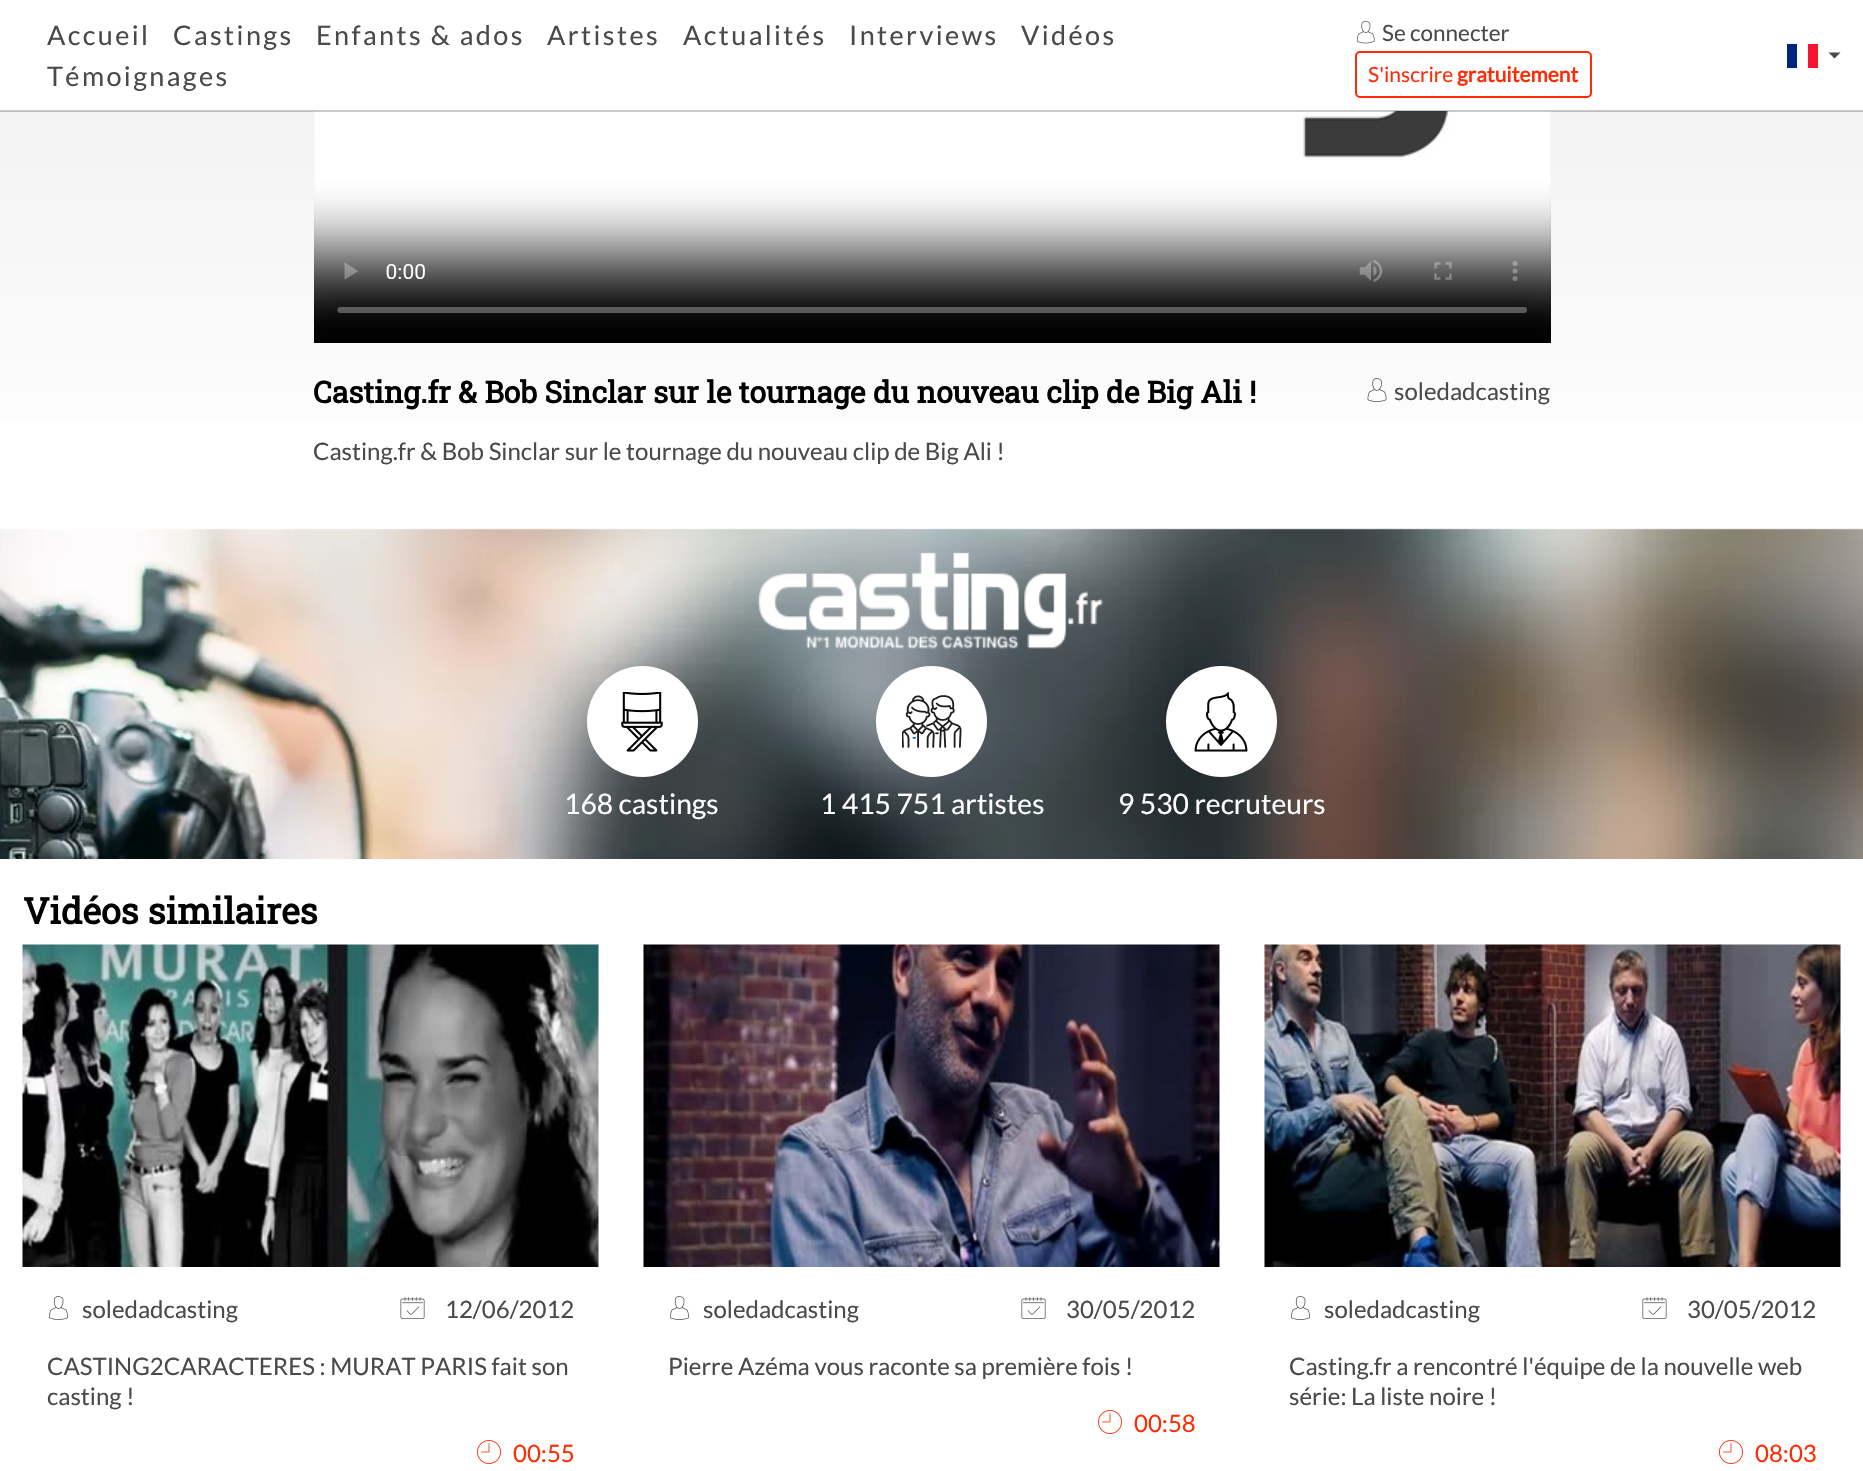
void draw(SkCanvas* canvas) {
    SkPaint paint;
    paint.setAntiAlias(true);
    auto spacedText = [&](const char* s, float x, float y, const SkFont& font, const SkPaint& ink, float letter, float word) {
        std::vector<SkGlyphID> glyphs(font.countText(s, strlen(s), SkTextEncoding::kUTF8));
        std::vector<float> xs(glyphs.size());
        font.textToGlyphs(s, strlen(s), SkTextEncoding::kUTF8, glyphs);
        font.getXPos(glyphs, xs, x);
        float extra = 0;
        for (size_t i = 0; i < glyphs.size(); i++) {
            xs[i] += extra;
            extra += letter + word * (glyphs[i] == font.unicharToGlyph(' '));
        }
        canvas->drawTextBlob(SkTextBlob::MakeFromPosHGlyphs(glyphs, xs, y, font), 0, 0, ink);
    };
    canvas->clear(0xFFFFFFFF);
    SkFont font1(fontMgr->matchFamilyStyle("Lato", SkFontStyle::Normal()), 27);
    font1.setSubpixel(true);
    paint.setColor(0xFF4A4A4A);
    spacedText("Accueil", 47, 45, font1, paint, 2.4f, 0);
    spacedText("Castings", 173, 45, font1, paint, 2.4f, 0);
    spacedText("Enfants & ados", 316, 45, font1, paint, 2.4f, 0);
    spacedText("Artistes", 547, 45, font1, paint, 2.4f, 0);
    spacedText("Actualités", 683, 45, font1, paint, 2.4f, 0);
    spacedText("Interviews", 849, 45, font1, paint, 2.4f, 0);
    spacedText("Vidéos", 1021, 45, font1, paint, 2.4f, 0);
    spacedText("Témoignages", 47, 86, font1, paint, 2.4f, 0);
    canvas->drawImageRect(SkImages::DeferredFromEncodedData(SkData::MakeFromFileName("img1.png")), SkRect::MakeXYWH(1356, 20, 19, 24), SkSamplingOptions());
    SkFont font2(fontMgr->matchFamilyStyle("Lato", SkFontStyle::Normal()), 22.5f);
    font2.setSubpixel(true);
    canvas->drawString("Se connecter", 1382, 41, font2, paint);
    paint.setStyle(SkPaint::kStroke_Style);
    paint.setStrokeWidth(2);
    paint.setColor(0xFFFF2B04);
    canvas->drawRoundRect(SkRect::MakeXYWH(1356, 52, 235, 45), 4, 4, paint);
    SkFont font3(fontMgr->matchFamilyStyle("Lato", SkFontStyle::Normal()), 21);
    font3.setSubpixel(true);
    paint.setStyle(SkPaint::kFill_Style);
    canvas->drawString("S'inscrire", 1368, 82, font3, paint);
    SkFont font4(fontMgr->matchFamilyStyle("Lato", SkFontStyle::Bold()), 21);
    font4.setSubpixel(true);
    canvas->drawString("gratuitement", 1457, 82, font4, paint);
    paint.setColor(0xFF00267F);
    canvas->drawRect(SkRect::MakeXYWH(1787, 44, 10, 24), paint);
    paint.setColor(0xFFF31830);
    canvas->drawRect(SkRect::MakeXYWH(1808, 44, 10, 24), paint);
    paint.setColor(0xFF4A4A4A);
    canvas->drawPath(SkPathBuilder().moveTo(1828.5f, 52.5f).lineTo(1840.5f, 52.5f).lineTo(1834.5f, 58.5f).close().detach(), paint);
    {
        const SkColor colors[] = {0xFFE4E3E3, 0xFFFFFFFF};
        const float stops[] = {0, 1};
        const SkPoint ends[] = {{932, -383}, {932, 500}};
        paint.setShader(SkGradientShader::MakeLinear(ends, colors, stops, 2, SkTileMode::kClamp));
        paint.setAlpha(255);
    }
    canvas->drawRect(SkRect::MakeXYWH(0, 111, 1863, 310), paint);
    canvas->drawImageRect(SkImages::DeferredFromEncodedData(SkData::MakeFromFileName("img2.png")), SkRect::MakeXYWH(314, 111, 1237, 232), SkSamplingOptions());
    paint.setShader(nullptr);
    paint.setColor(0x3D1D1D1D);
    canvas->drawRect(SkRect::MakeXYWH(0, 110, 1863, 2), paint);
    SkFont font5(fontMgr->matchFamilyStyle("Roboto Slab", SkFontStyle::Bold()), 30);
    font5.setSubpixel(true);
    paint.setColor(0xFF000000);
    canvas->drawString("Casting.fr & Bob Sinclar sur le tournage du nouveau clip de Big Ali !", 313, 403, font5, paint);
    canvas->drawImageRect(SkImages::DeferredFromEncodedData(SkData::MakeFromFileName("img3.png")), SkRect::MakeXYWH(1367, 378, 20, 24), SkSamplingOptions());
    SkFont font6(fontMgr->matchFamilyStyle("Lato", SkFontStyle::Normal()), 24);
    font6.setSubpixel(true);
    paint.setColor(0xFF4A4A4A);
    canvas->drawString("soledadcasting", 1394, 400, font6, paint);
    canvas->drawString("Casting.fr & Bob Sinclar sur le tournage du nouveau clip de Big Ali !", 313, 460, font6, paint);
    canvas->drawImageRect(SkImages::DeferredFromEncodedData(SkData::MakeFromFileName("img4.png")), SkRect::MakeXYWH(0, 528, 1863, 331), SkSamplingOptions());
    canvas->drawImageRect(SkImages::DeferredFromEncodedData(SkData::MakeFromFileName("img5.png")), SkRect::MakeXYWH(758, 552, 345, 98), SkSamplingOptions());
    paint.setColor(0xFFFFFFFF);
    canvas->drawCircle(642.5f, 721.5f, 55.5f, paint);
    canvas->drawImageRect(SkImages::DeferredFromEncodedData(SkData::MakeFromFileName("img6.png")), SkRect::MakeXYWH(621, 692, 42, 60), SkSamplingOptions());
    SkFont font7(fontMgr->matchFamilyStyle("Lato", SkFontStyle::Normal()), 28.25f);
    font7.setSubpixel(true);
    canvas->drawString("168 castings", 564, 814, font7, paint);
    canvas->drawCircle(931.5f, 721.5f, 55.5f, paint);
    canvas->drawImageRect(SkImages::DeferredFromEncodedData(SkData::MakeFromFileName("img7.png")), SkRect::MakeXYWH(902, 695, 60, 53), SkSamplingOptions());
    canvas->drawString("1 415 751 artistes", 820, 814, font7, paint);
    canvas->drawCircle(1221.5f, 721.5f, 55.5f, paint);
    canvas->drawImageRect(SkImages::DeferredFromEncodedData(SkData::MakeFromFileName("img8.png")), SkRect::MakeXYWH(1194, 692, 54, 60), SkSamplingOptions());
    canvas->drawString("9 530 recruteurs", 1118, 814, font7, paint);
    SkFont font8(fontMgr->matchFamilyStyle("Roboto Slab", SkFontStyle::Bold()), 36);
    font8.setSubpixel(true);
    paint.setColor(0xFF000000);
    canvas->drawString("Vidéos similaires", 23, 924, font8, paint);
    canvas->drawImageRect(SkImages::DeferredFromEncodedData(SkData::MakeFromFileName("img9.png")), SkRect::MakeXYWH(22, 944, 577, 323), SkSamplingOptions());
    canvas->drawImageRect(SkImages::DeferredFromEncodedData(SkData::MakeFromFileName("img10.png")), SkRect::MakeXYWH(49, 1296, 19, 24), SkSamplingOptions());
    paint.setColor(0xFF4A4A4A);
    canvas->drawString("soledadcasting", 82, 1318, font6, paint);
    canvas->drawImageRect(SkImages::DeferredFromEncodedData(SkData::MakeFromFileName("img11.png")), SkRect::MakeXYWH(400, 1297, 25, 22), SkSamplingOptions());
    canvas->drawString("12/06/2012", 445, 1318, font6, paint);
    canvas->drawString("CASTING2CARACTERES : MURAT PARIS fait son", 47, 1375, font6, paint);
    canvas->drawString("casting !", 47, 1405, font6, paint);
    canvas->drawImageRect(SkImages::DeferredFromEncodedData(SkData::MakeFromFileName("img12.png")), SkRect::MakeXYWH(477, 1440, 24, 24), SkSamplingOptions());
    paint.setColor(0xFFFF2B04);
    canvas->drawString("00:55", 513, 1462, font6, paint);
    canvas->drawImageRect(SkImages::DeferredFromEncodedData(SkData::MakeFromFileName("img13.png")), SkRect::MakeXYWH(643, 944, 577, 323), SkSamplingOptions());
    canvas->drawImageRect(SkImages::DeferredFromEncodedData(SkData::MakeFromFileName("img10.png")), SkRect::MakeXYWH(670, 1296, 19, 24), SkSamplingOptions());
    paint.setColor(0xFF4A4A4A);
    canvas->drawString("soledadcasting", 703, 1318, font6, paint);
    canvas->drawImageRect(SkImages::DeferredFromEncodedData(SkData::MakeFromFileName("img11.png")), SkRect::MakeXYWH(1021, 1297, 25, 22), SkSamplingOptions());
    canvas->drawString("30/05/2012", 1066, 1318, font6, paint);
    canvas->drawString("Pierre Azéma vous raconte sa première fois !", 668, 1375, font6, paint);
    canvas->drawImageRect(SkImages::DeferredFromEncodedData(SkData::MakeFromFileName("img12.png")), SkRect::MakeXYWH(1098, 1410, 24, 24), SkSamplingOptions());
    paint.setColor(0xFFFF2B04);
    canvas->drawString("00:58", 1134, 1432, font6, paint);
    canvas->drawImageRect(SkImages::DeferredFromEncodedData(SkData::MakeFromFileName("img14.png")), SkRect::MakeXYWH(1264, 944, 577, 323), SkSamplingOptions());
    canvas->drawImageRect(SkImages::DeferredFromEncodedData(SkData::MakeFromFileName("img10.png")), SkRect::MakeXYWH(1291, 1296, 19, 24), SkSamplingOptions());
    paint.setColor(0xFF4A4A4A);
    canvas->drawString("soledadcasting", 1324, 1318, font6, paint);
    canvas->drawImageRect(SkImages::DeferredFromEncodedData(SkData::MakeFromFileName("img11.png")), SkRect::MakeXYWH(1642, 1297, 25, 22), SkSamplingOptions());
    canvas->drawString("30/05/2012", 1687, 1318, font6, paint);
    canvas->drawString("Casting.fr a rencontré l'équipe de la nouvelle web", 1289, 1375, font6, paint);
    canvas->drawString("série: La liste noire !", 1289, 1405, font6, paint);
    canvas->drawImageRect(SkImages::DeferredFromEncodedData(SkData::MakeFromFileName("img12.png")), SkRect::MakeXYWH(1719, 1440, 24, 24), SkSamplingOptions());
    paint.setColor(0xFFFF2B04);
    canvas->drawString("08:03", 1755, 1462, font6, paint);
}
